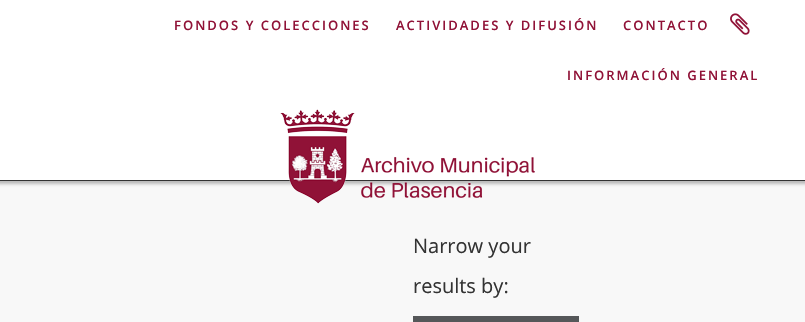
void draw(SkCanvas* canvas) {
    SkPaint paint;
    paint.setAntiAlias(true);
    auto spacedText = [&](const char* s, float x, float y, const SkFont& font, const SkPaint& ink, float letter, float word) {
        std::vector<SkGlyphID> glyphs(font.countText(s, strlen(s), SkTextEncoding::kUTF8));
        std::vector<float> xs(glyphs.size());
        font.textToGlyphs(s, strlen(s), SkTextEncoding::kUTF8, glyphs);
        font.getXPos(glyphs, xs, x);
        float extra = 0;
        for (size_t i = 0; i < glyphs.size(); i++) {
            xs[i] += extra;
            extra += letter + word * (glyphs[i] == font.unicharToGlyph(' '));
        }
        canvas->drawTextBlob(SkTextBlob::MakeFromPosHGlyphs(glyphs, xs, y, font), 0, 0, ink);
    };
    canvas->clear(0xFFF8F8F8);
    paint.setColor(0x40000000);
    paint.setMaskFilter(SkMaskFilter::MakeBlur(kNormal_SkBlurStyle, 1.5f));
    canvas->drawRect(SkRect::MakeXYWH(-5, 3, 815, 181), paint);
    paint.setMaskFilter(nullptr);
    paint.setColor(0xFFFFFFFF);
    canvas->drawRect(SkRect::MakeXYWH(0, 0, 805, 180), paint);
    paint.setColor(0xFF333333);
    canvas->drawRect(SkRect::MakeXYWH(0, 180, 805, 1), paint);
    SkFont font1(fontMgr->matchFamilyStyle("Open Sans", SkFontStyle(600, SkFontStyle::kNormal_Width, SkFontStyle::kUpright_Slant)), 13);
    font1.setSubpixel(true);
    paint.setColor(0xFF901237);
    spacedText("FONDOS Y COLECCIONES", 174, 30, font1, paint, 2, 0);
    spacedText("ACTIVIDADES Y DIFUSIÓN", 396, 30, font1, paint, 2, 0);
    spacedText("CONTACTO", 623, 30, font1, paint, 2, 0);
    canvas->drawImageRect(SkImages::DeferredFromEncodedData(SkData::MakeFromFileName("img1.png")), SkRect::MakeXYWH(730, 13, 20, 22), SkSamplingOptions());
    spacedText("INFORMACIÓN GENERAL", 567, 80, font1, paint, 2, 0);
    canvas->drawImageRect(SkImages::DeferredFromEncodedData(SkData::MakeFromFileName("img2.png")), SkRect::MakeXYWH(280, 109, 255, 95), SkSamplingOptions());
    SkFont font2(fontMgr->matchFamilyStyle("Open Sans", SkFontStyle::Normal()), 20);
    font2.setSubpixel(true);
    paint.setColor(0xFF333333);
    canvas->drawString("Narrow your", 413, 253, font2, paint);
    canvas->drawString("results by:", 413, 293, font2, paint);
    paint.setColor(0xFF555759);
    canvas->drawRect(SkRect::MakeXYWH(413, 316, 166, 6), paint);
}
